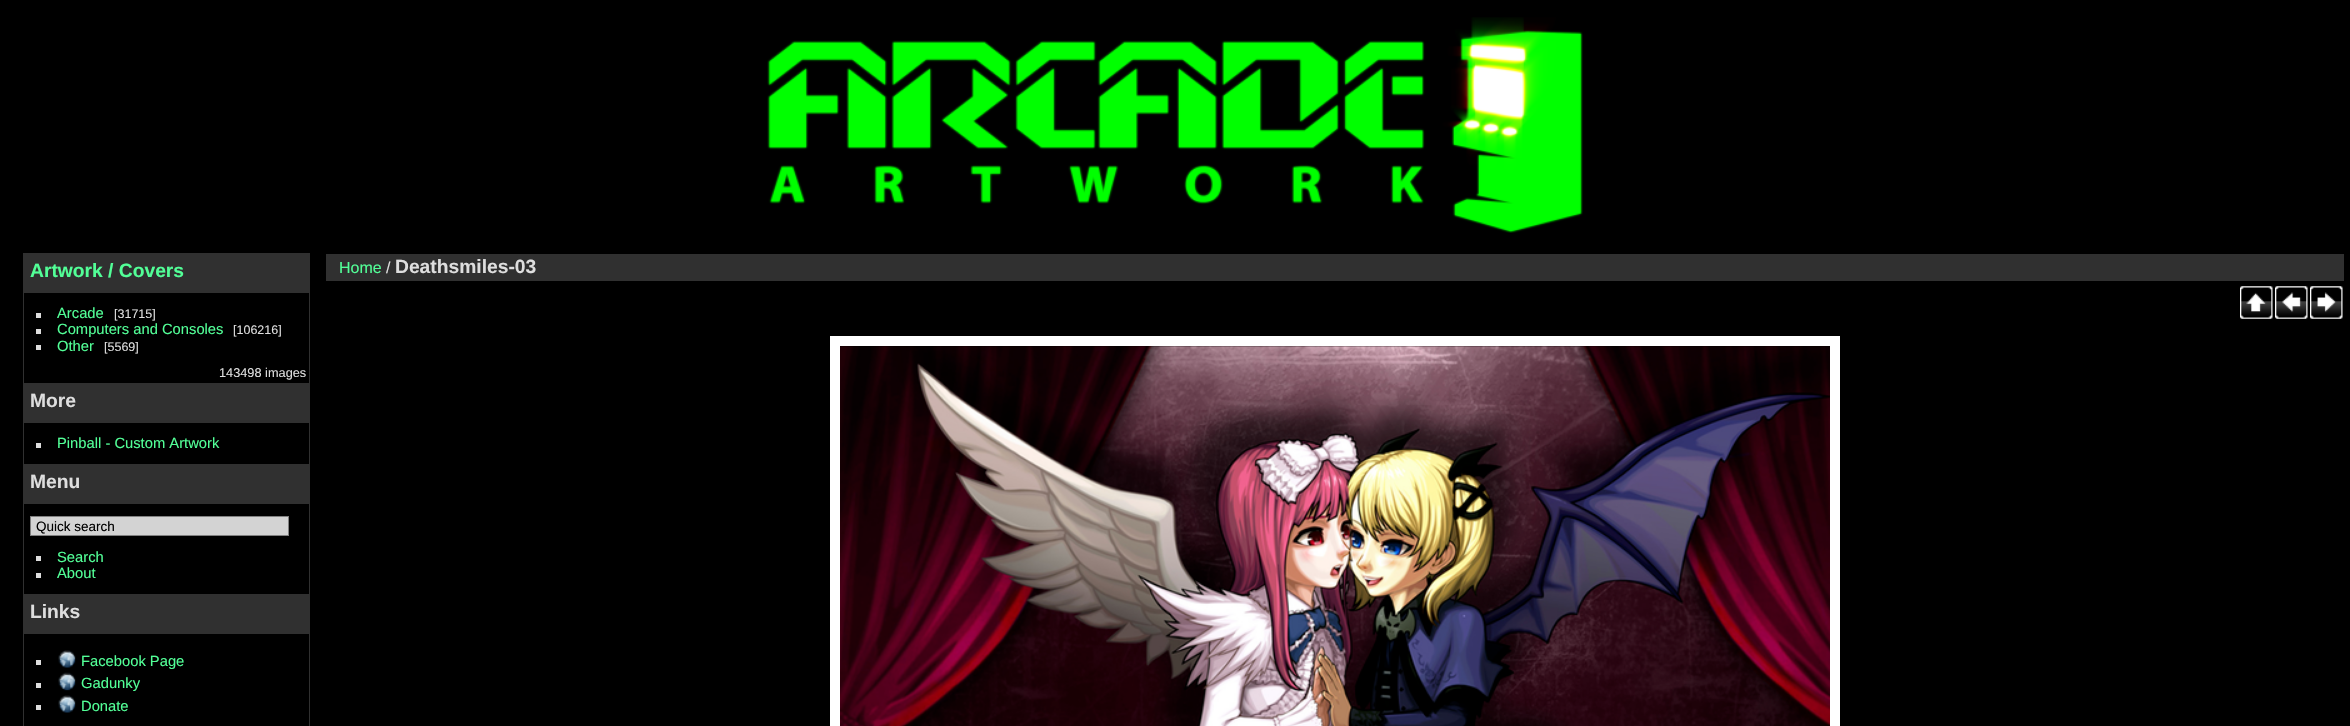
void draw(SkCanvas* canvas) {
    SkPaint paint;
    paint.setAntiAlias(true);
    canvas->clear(0xFF000000);
    canvas->drawImageRect(SkImages::DeferredFromEncodedData(SkData::MakeFromFileName("img1.png")), SkRect::MakeXYWH(767, 17, 816, 216), SkSamplingOptions());
    paint.setStyle(SkPaint::kStroke_Style);
    paint.setStrokeWidth(1);
    paint.setColor(0xFF303030);
    canvas->drawRect(SkRect::MakeXYWH(23.5f, 253.5f, 286, 130), paint);
    paint.setStyle(SkPaint::kFill_Style);
    canvas->drawRect(SkRect::MakeXYWH(24, 254, 285, 39), paint);
    SkFont font1(fontMgr->matchFamilyStyle("Liberation Sans", SkFontStyle::Bold()), 19.25f);
    font1.setSubpixel(true);
    paint.setColor(0xFF52FF97);
    canvas->drawString("Artwork / Covers", 30, 277, font1, paint);
    paint.setColor(0xFFDEDEDE);
    canvas->drawRect(SkRect::MakeXYWH(36, 313, 5, 5), paint);
    SkFont font2(fontMgr->matchFamilyStyle("Liberation Sans", SkFontStyle::Normal()), 14.75f);
    font2.setSubpixel(true);
    paint.setColor(0xFF52FF97);
    canvas->drawString("Arcade", 57, 318, font2, paint);
    SkFont font3(fontMgr->matchFamilyStyle("Liberation Sans", SkFontStyle::Normal()), 12.5f);
    font3.setSubpixel(true);
    paint.setColor(0xFFDEDEDE);
    canvas->drawString("[31715]", 114, 318, font3, paint);
    canvas->drawRect(SkRect::MakeXYWH(36, 329, 5, 5), paint);
    paint.setColor(0xFF52FF97);
    canvas->drawString("Computers and Consoles", 57, 334, font2, paint);
    paint.setColor(0xFFDEDEDE);
    canvas->drawString("[106216]", 233, 334, font3, paint);
    canvas->drawRect(SkRect::MakeXYWH(36, 345, 5, 5), paint);
    paint.setColor(0xFF52FF97);
    canvas->drawString("Other", 57, 351, font2, paint);
    paint.setColor(0xFFDEDEDE);
    canvas->drawString("[5569]", 104, 351, font3, paint);
    SkFont font4(fontMgr->matchFamilyStyle("Liberation Sans", SkFontStyle::Normal()), 12.75f);
    font4.setSubpixel(true);
    canvas->drawString("143498 images", 219, 377, font4, paint);
    paint.setStyle(SkPaint::kStroke_Style);
    paint.setColor(0xFF303030);
    canvas->drawRect(SkRect::MakeXYWH(23.5f, 383.5f, 286, 81), paint);
    paint.setStyle(SkPaint::kFill_Style);
    canvas->drawRect(SkRect::MakeXYWH(24, 384, 285, 39), paint);
    paint.setColor(0xFFDEDEDE);
    canvas->drawString("More", 30, 407, font1, paint);
    canvas->drawRect(SkRect::MakeXYWH(36, 443, 5, 5), paint);
    paint.setColor(0xFF52FF97);
    canvas->drawString("Pinball - Custom Artwork", 57, 448, font2, paint);
    paint.setStyle(SkPaint::kStroke_Style);
    paint.setColor(0xFF303030);
    canvas->drawRect(SkRect::MakeXYWH(23.5f, 464.5f, 286, 130), paint);
    paint.setStyle(SkPaint::kFill_Style);
    canvas->drawRect(SkRect::MakeXYWH(24, 465, 285, 39), paint);
    paint.setColor(0xFFDEDEDE);
    canvas->drawString("Menu", 30, 488, font1, paint);
    paint.setColor(0xFFD3D3D3);
    canvas->drawRect(SkRect::MakeXYWH(30.5f, 516.5f, 258, 19), paint);
    paint.setStyle(SkPaint::kStroke_Style);
    paint.setColor(0xFF808080);
    canvas->drawRect(SkRect::MakeXYWH(30.5f, 516.5f, 258, 19), paint);
    SkFont font5(fontMgr->matchFamilyStyle("Liberation Sans", SkFontStyle::Normal()), 13.5f);
    font5.setSubpixel(true);
    paint.setStyle(SkPaint::kFill_Style);
    paint.setColor(0xFF000000);
    canvas->drawString("Quick search", 36, 531, font5, paint);
    paint.setColor(0xFFDEDEDE);
    canvas->drawRect(SkRect::MakeXYWH(36, 556, 5, 5), paint);
    paint.setColor(0xFF52FF97);
    canvas->drawString("Search", 57, 562, font2, paint);
    paint.setColor(0xFFDEDEDE);
    canvas->drawRect(SkRect::MakeXYWH(36, 573, 5, 5), paint);
    paint.setColor(0xFF52FF97);
    canvas->drawString("About", 57, 578, font2, paint);
    paint.setStyle(SkPaint::kStroke_Style);
    paint.setColor(0xFF303030);
    canvas->drawRect(SkRect::MakeXYWH(23.5f, 594.5f, 286, 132), paint);
    paint.setStyle(SkPaint::kFill_Style);
    canvas->drawRect(SkRect::MakeXYWH(24, 595, 285, 39), paint);
    paint.setColor(0xFFDEDEDE);
    canvas->drawString("Links", 30, 618, font1, paint);
    canvas->drawRect(SkRect::MakeXYWH(36, 660, 5, 5), paint);
    canvas->drawImageRect(SkImages::DeferredFromEncodedData(SkData::MakeFromFileName("img2.png")), SkRect::MakeXYWH(58, 650, 18, 18), SkSamplingOptions());
    paint.setColor(0xFF52FF97);
    canvas->drawString("Facebook Page", 81, 666, font2, paint);
    paint.setColor(0xFFDEDEDE);
    canvas->drawRect(SkRect::MakeXYWH(36, 683, 5, 5), paint);
    canvas->drawImageRect(SkImages::DeferredFromEncodedData(SkData::MakeFromFileName("img3.png")), SkRect::MakeXYWH(58, 672, 18, 19), SkSamplingOptions());
    paint.setColor(0xFF52FF97);
    canvas->drawString("Gadunky", 81, 688, font2, paint);
    paint.setColor(0xFFDEDEDE);
    canvas->drawRect(SkRect::MakeXYWH(36, 705, 5, 5), paint);
    canvas->drawImageRect(SkImages::DeferredFromEncodedData(SkData::MakeFromFileName("img2.png")), SkRect::MakeXYWH(58, 695, 18, 18), SkSamplingOptions());
    paint.setColor(0xFF52FF97);
    canvas->drawString("Donate", 81, 711, font2, paint);
    paint.setColor(0xFF303030);
    canvas->drawRect(SkRect::MakeXYWH(326, 254, 2018, 27), paint);
    SkFont font6(fontMgr->matchFamilyStyle("Liberation Sans", SkFontStyle::Normal()), 16);
    font6.setSubpixel(true);
    paint.setColor(0xFF52FF97);
    canvas->drawString("Home", 339, 273, font6, paint);
    paint.setColor(0xFFDEDEDE);
    canvas->drawString("/", 386, 273, font6, paint);
    canvas->drawString("Deathsmiles-03", 395, 273, font1, paint);
    canvas->drawImageRect(SkImages::DeferredFromEncodedData(SkData::MakeFromFileName("img4.png")), SkRect::MakeXYWH(2240, 286, 33, 33), SkSamplingOptions());
    canvas->drawImageRect(SkImages::DeferredFromEncodedData(SkData::MakeFromFileName("img5.png")), SkRect::MakeXYWH(2275, 286, 33, 33), SkSamplingOptions());
    canvas->drawImageRect(SkImages::DeferredFromEncodedData(SkData::MakeFromFileName("img6.png")), SkRect::MakeXYWH(2310, 286, 33, 33), SkSamplingOptions());
    paint.setStyle(SkPaint::kStroke_Style);
    paint.setStrokeWidth(10);
    paint.setColor(0xFFFFFFFF);
    canvas->drawRect(SkRect::MakeXYWH(835, 341, 1000, 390), paint);
    canvas->drawImageRect(SkImages::DeferredFromEncodedData(SkData::MakeFromFileName("img7.png")), SkRect::MakeXYWH(840, 346, 990, 380), SkSamplingOptions());
}
